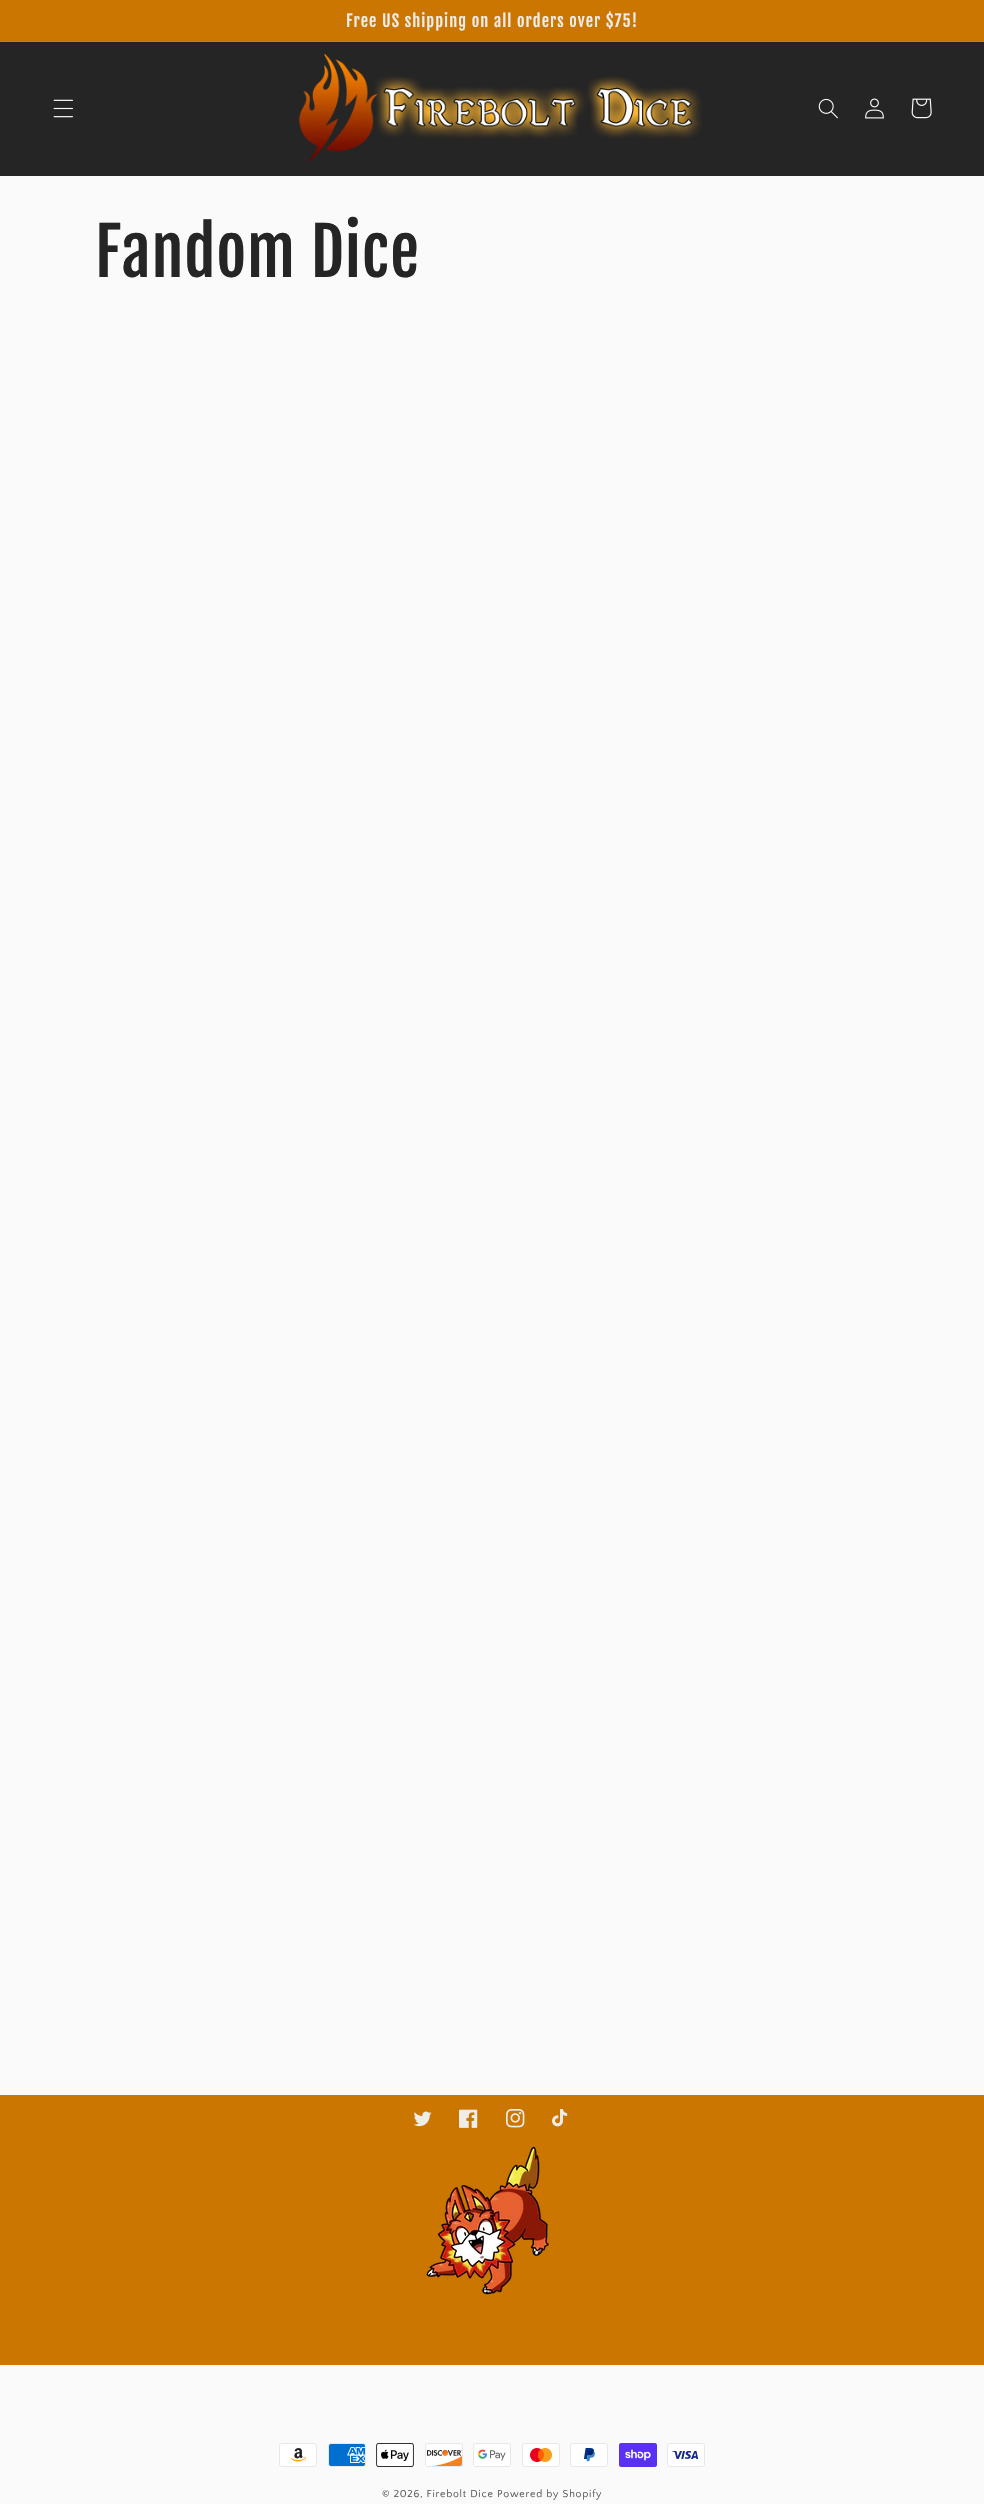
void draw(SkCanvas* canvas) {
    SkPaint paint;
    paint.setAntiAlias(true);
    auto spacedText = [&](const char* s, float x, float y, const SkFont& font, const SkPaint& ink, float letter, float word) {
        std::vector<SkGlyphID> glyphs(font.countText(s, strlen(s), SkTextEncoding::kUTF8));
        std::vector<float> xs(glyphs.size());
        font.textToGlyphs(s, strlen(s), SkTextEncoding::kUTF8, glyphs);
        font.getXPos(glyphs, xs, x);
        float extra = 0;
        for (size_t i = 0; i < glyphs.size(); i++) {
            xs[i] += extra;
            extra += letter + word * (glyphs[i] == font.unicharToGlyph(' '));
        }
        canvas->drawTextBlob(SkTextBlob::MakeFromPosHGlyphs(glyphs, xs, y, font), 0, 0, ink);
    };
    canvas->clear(0xFFFAFAFA);
    paint.setColor(0xFFCA7600);
    canvas->drawRect(SkRect::MakeXYWH(0, 0, 984, 41), paint);
    paint.setColor(0xFFCD7F13);
    canvas->drawRect(SkRect::MakeXYWH(0, 41, 984, 1), paint);
    SkFont font1(fontMgr->matchFamilyStyle("Fjalla One", SkFontStyle::Normal()), 16.25f);
    font1.setSubpixel(true);
    paint.setColor(0xFFEFECEC);
    spacedText("Free US shipping on all orders over $75!", 346, 27, font1, paint, 1.05f, 0);
    paint.setColor(0xFF252525);
    canvas->drawRect(SkRect::MakeXYWH(0, 42, 984, 134), paint);
    canvas->drawImageRect(SkImages::DeferredFromEncodedData(SkData::MakeFromFileName("img1.png")), SkRect::MakeXYWH(53, 99, 20, 19), SkSamplingOptions());
    canvas->drawImageRect(SkImages::DeferredFromEncodedData(SkData::MakeFromFileName("img2.png")), SkRect::MakeXYWH(298, 53, 404, 109), SkSamplingOptions());
    canvas->drawImageRect(SkImages::DeferredFromEncodedData(SkData::MakeFromFileName("img3.png")), SkRect::MakeXYWH(818, 98, 20, 21), SkSamplingOptions());
    canvas->drawImageRect(SkImages::DeferredFromEncodedData(SkData::MakeFromFileName("img4.png")), SkRect::MakeXYWH(865, 98, 19, 21), SkSamplingOptions());
    canvas->drawImageRect(SkImages::DeferredFromEncodedData(SkData::MakeFromFileName("img5.png")), SkRect::MakeXYWH(911, 98, 21, 21), SkSamplingOptions());
    SkFont font2(fontMgr->matchFamilyStyle("Fjalla One", SkFontStyle::Normal()), 65);
    font2.setSubpixel(true);
    spacedText("Fandom Dice", 95, 277, font2, paint, 0.75f, 0);
    paint.setColor(0xFFCA7600);
    canvas->drawRect(SkRect::MakeXYWH(0, 2095, 984, 270), paint);
    canvas->drawImageRect(SkImages::DeferredFromEncodedData(SkData::MakeFromFileName("img6.png")), SkRect::MakeXYWH(413, 2111, 19, 16), SkSamplingOptions());
    canvas->drawImageRect(SkImages::DeferredFromEncodedData(SkData::MakeFromFileName("img7.png")), SkRect::MakeXYWH(459, 2109, 19, 19), SkSamplingOptions());
    canvas->drawImageRect(SkImages::DeferredFromEncodedData(SkData::MakeFromFileName("img8.png")), SkRect::MakeXYWH(506, 2109, 19, 19), SkSamplingOptions());
    canvas->drawImageRect(SkImages::DeferredFromEncodedData(SkData::MakeFromFileName("img9.png")), SkRect::MakeXYWH(552, 2109, 16, 18), SkSamplingOptions());
    canvas->drawImageRect(SkImages::DeferredFromEncodedData(SkData::MakeFromFileName("img10.png")), SkRect::MakeXYWH(426, 2146, 123, 149), SkSamplingOptions());
    canvas->drawImageRect(SkImages::DeferredFromEncodedData(SkData::MakeFromFileName("img11.png")), SkRect::MakeXYWH(279, 2443, 38, 24), SkSamplingOptions());
    canvas->drawImageRect(SkImages::DeferredFromEncodedData(SkData::MakeFromFileName("img12.png")), SkRect::MakeXYWH(328, 2443, 38, 24), SkSamplingOptions());
    canvas->drawImageRect(SkImages::DeferredFromEncodedData(SkData::MakeFromFileName("img13.png")), SkRect::MakeXYWH(376, 2443, 38, 24), SkSamplingOptions());
    canvas->drawImageRect(SkImages::DeferredFromEncodedData(SkData::MakeFromFileName("img14.png")), SkRect::MakeXYWH(425, 2443, 38, 24), SkSamplingOptions());
    canvas->drawImageRect(SkImages::DeferredFromEncodedData(SkData::MakeFromFileName("img15.png")), SkRect::MakeXYWH(473, 2443, 38, 24), SkSamplingOptions());
    canvas->drawImageRect(SkImages::DeferredFromEncodedData(SkData::MakeFromFileName("img16.png")), SkRect::MakeXYWH(522, 2443, 38, 24), SkSamplingOptions());
    canvas->drawImageRect(SkImages::DeferredFromEncodedData(SkData::MakeFromFileName("img17.png")), SkRect::MakeXYWH(570, 2443, 38, 24), SkSamplingOptions());
    canvas->drawImageRect(SkImages::DeferredFromEncodedData(SkData::MakeFromFileName("img18.png")), SkRect::MakeXYWH(619, 2443, 38, 24), SkSamplingOptions());
    canvas->drawImageRect(SkImages::DeferredFromEncodedData(SkData::MakeFromFileName("img19.png")), SkRect::MakeXYWH(667, 2443, 38, 24), SkSamplingOptions());
    SkFont font3(fontMgr->matchFamilyStyle("Quattrocento Sans", SkFontStyle::Normal()), 10.5f);
    font3.setSubpixel(true);
    paint.setColor(0xFF5A5A5A);
    spacedText("© 2026, Firebolt Dice", 382, 2497, font3, paint, 0.75f, 0);
    spacedText("Powered by Shopify", 497, 2497, font3, paint, 0.75f, 0);
}
